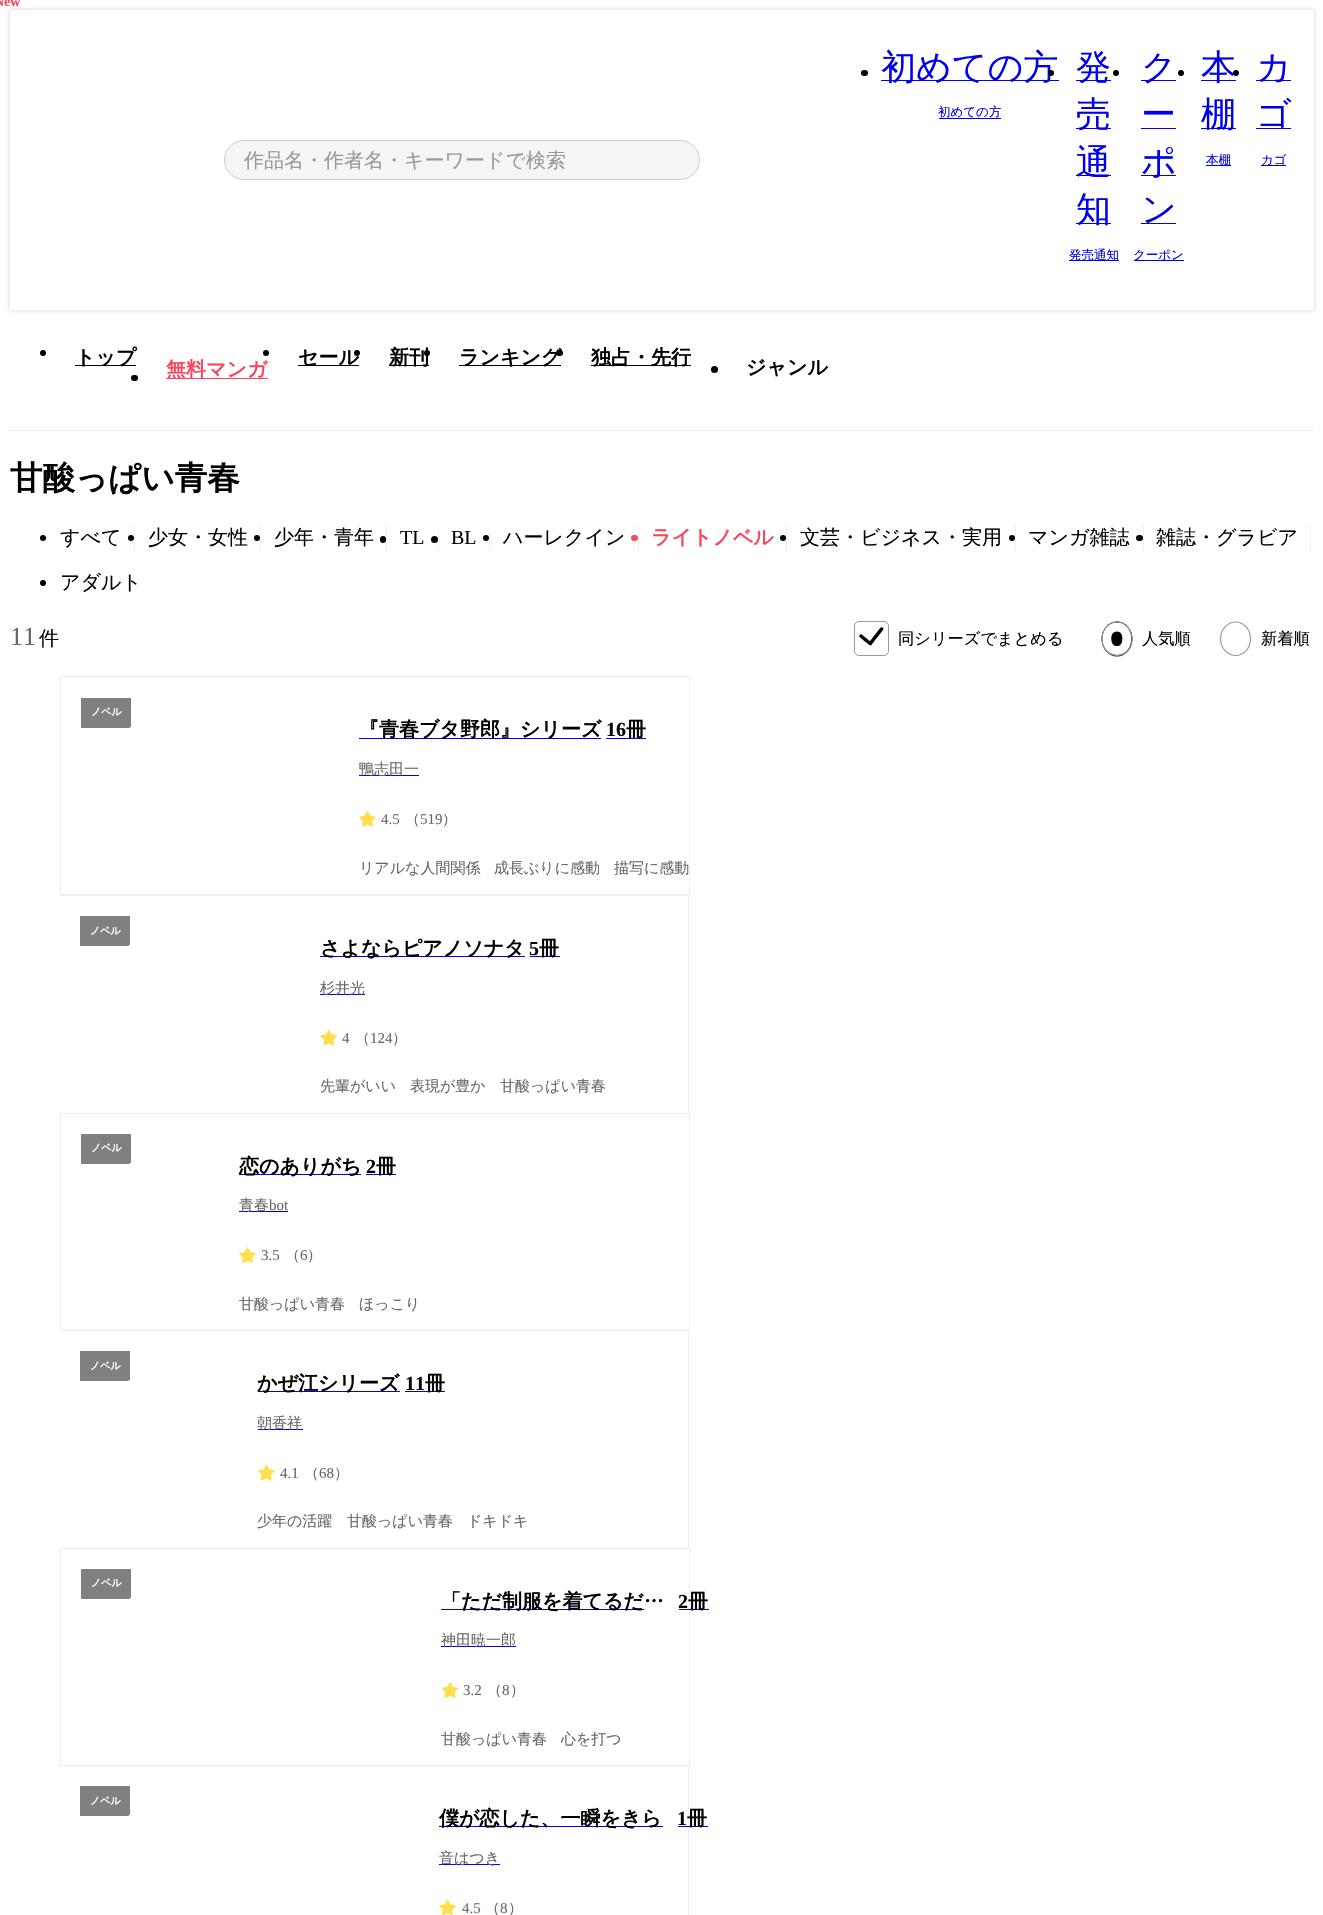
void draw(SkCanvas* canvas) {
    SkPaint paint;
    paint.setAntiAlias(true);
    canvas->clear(0xFFFFFFFF);
    paint.setColor(0xFFEEEEEE);
    canvas->drawRect(SkRect::MakeXYWH(10, 430, 1304, 1), paint);
    paint.setColor(0x33000000);
    paint.setMaskFilter(SkMaskFilter::MakeBlur(kNormal_SkBlurStyle, 2));
    canvas->drawRect(SkRect::MakeXYWH(10, 10, 1304, 300), paint);
    paint.setMaskFilter(nullptr);
    SkFont font1(fontMgr->matchFamilyStyle("Liberation Serif", SkFontStyle::Bold()), 14);
    font1.setSubpixel(true);
    paint.setColor(0xFFF8485E);
    canvas->drawString("New", -6, 6, font1, paint);
    canvas->drawRect(SkRect::MakeXYWH(166, 378, 102, 1), paint);
    SkFont font2(fontMgr->matchFamilyStyle("WenQuanYi Zen Hei", SkFontStyle::Bold()), 20);
    font2.setSubpixel(true);
    canvas->drawString("無料マンガ", 166, 376, font2, paint);
    paint.setColor(0xFF000000);
    canvas->drawRoundRect(SkRect::MakeXYWH(131, 375, 7, 6), 3, 3, paint);
    canvas->drawCircle(43, 353, 3, paint);
    canvas->drawRect(SkRect::MakeXYWH(75, 365, 61, 1), paint);
    canvas->drawString("トップ", 75, 364, font2, paint);
    canvas->drawCircle(266, 353, 3, paint);
    canvas->drawRect(SkRect::MakeXYWH(298, 365, 61, 1), paint);
    canvas->drawString("セール", 298, 364, font2, paint);
    canvas->drawCircle(357, 353, 3, paint);
    canvas->drawRect(SkRect::MakeXYWH(389, 365, 40, 1), paint);
    canvas->drawString("新刊", 389, 364, font2, paint);
    canvas->drawCircle(427, 353, 3, paint);
    canvas->drawRect(SkRect::MakeXYWH(459, 365, 102, 1), paint);
    canvas->drawString("ランキング", 459, 364, font2, paint);
    canvas->drawRoundRect(SkRect::MakeXYWH(556, 350, 7, 6), 3, 3, paint);
    canvas->drawRect(SkRect::MakeXYWH(591, 365, 100, 1), paint);
    canvas->drawString("独占・先行", 591, 364, font2, paint);
    canvas->drawCircle(714.5f, 369.5f, 3.5f, paint);
    canvas->drawString("ジャンル", 746, 374, font2, paint);
    paint.setColor(0xFFFFFFFF);
    canvas->drawRect(SkRect::MakeXYWH(10, 10, 1304, 300), paint);
    paint.setColor(0xFFF5F5F5);
    canvas->drawRoundRect(SkRect::MakeXYWH(224.5f, 140.5f, 475, 39), 19.5f, 19.5f, paint);
    paint.setStyle(SkPaint::kStroke_Style);
    paint.setStrokeWidth(1);
    paint.setColor(0xFFCCCCCC);
    canvas->drawRoundRect(SkRect::MakeXYWH(224.5f, 140.5f, 475, 39), 19.5f, 19.5f, paint);
    SkFont font3(fontMgr->matchFamilyStyle("WenQuanYi Zen Hei", SkFontStyle(500, SkFontStyle::kNormal_Width, SkFontStyle::kUpright_Slant)), 20);
    font3.setSubpixel(true);
    paint.setStyle(SkPaint::kFill_Style);
    paint.setColor(0xFF999999);
    canvas->drawString("作品名・作者名・キーワードで検索", 244, 167, font3, paint);
    paint.setColor(0xFF000000);
    canvas->drawRoundRect(SkRect::MakeXYWH(861, 70, 7, 6), 3, 3, paint);
    paint.setColor(0xFF0000EE);
    canvas->drawRect(SkRect::MakeXYWH(881, 80, 178, 1), paint);
    SkFont font4(fontMgr->matchFamilyStyle("WenQuanYi Zen Hei", SkFontStyle(500, SkFontStyle::kNormal_Width, SkFontStyle::kUpright_Slant)), 35);
    font4.setSubpixel(true);
    canvas->drawString("初めての方", 881, 79, font4, paint);
    SkFont font5(fontMgr->matchFamilyStyle("WenQuanYi Zen Hei", SkFontStyle(500, SkFontStyle::kNormal_Width, SkFontStyle::kUpright_Slant)), 12.5f);
    font5.setSubpixel(true);
    canvas->drawString("初めての方", 938, 116, font5, paint);
    canvas->drawRect(SkRect::MakeXYWH(939, 118, 62, 1), paint);
    paint.setColor(0xFF000000);
    canvas->drawCircle(1051, 73, 3, paint);
    paint.setColor(0xFF0000EE);
    canvas->drawRect(SkRect::MakeXYWH(1076, 80, 35, 1), paint);
    canvas->drawString("発", 1076, 79, font4, paint);
    canvas->drawRect(SkRect::MakeXYWH(1076, 128, 35, 1), paint);
    canvas->drawString("売", 1076, 126, font4, paint);
    canvas->drawRect(SkRect::MakeXYWH(1076, 175, 35, 1), paint);
    canvas->drawString("通", 1076, 174, font4, paint);
    canvas->drawRect(SkRect::MakeXYWH(1076, 223, 35, 1), paint);
    canvas->drawString("知", 1076, 221, font4, paint);
    canvas->drawRect(SkRect::MakeXYWH(1069, 260, 50, 1), paint);
    canvas->drawString("発売通知", 1069, 259, font5, paint);
    paint.setColor(0xFF000000);
    canvas->drawCircle(1116, 73, 3, paint);
    paint.setColor(0xFF0000EE);
    canvas->drawRect(SkRect::MakeXYWH(1141, 80, 35, 1), paint);
    canvas->drawString("ク", 1141, 79, font4, paint);
    canvas->drawString("ー", 1141, 126, font4, paint);
    canvas->drawRect(SkRect::MakeXYWH(1141, 128, 35, 1), paint);
    canvas->drawRect(SkRect::MakeXYWH(1141, 175, 35, 1), paint);
    canvas->drawString("ポ", 1141, 174, font4, paint);
    canvas->drawRect(SkRect::MakeXYWH(1141, 223, 35, 1), paint);
    canvas->drawString("ン", 1141, 221, font4, paint);
    canvas->drawRect(SkRect::MakeXYWH(1134, 260, 50, 1), paint);
    canvas->drawString("クーポン", 1133, 259, font5, paint);
    paint.setColor(0xFF000000);
    canvas->drawCircle(1181, 73, 3, paint);
    paint.setColor(0xFF0000EE);
    canvas->drawRect(SkRect::MakeXYWH(1201, 80, 35, 1), paint);
    canvas->drawString("本", 1201, 79, font4, paint);
    canvas->drawRect(SkRect::MakeXYWH(1201, 128, 35, 1), paint);
    canvas->drawString("棚", 1201, 126, font4, paint);
    canvas->drawRect(SkRect::MakeXYWH(1206, 165, 25, 1), paint);
    canvas->drawString("本棚", 1206, 164, font5, paint);
    paint.setColor(0xFF000000);
    canvas->drawCircle(1236, 73, 3, paint);
    paint.setColor(0xFF0000EE);
    canvas->drawRect(SkRect::MakeXYWH(1256, 80, 35, 1), paint);
    canvas->drawString("カ", 1256, 79, font4, paint);
    canvas->drawString("ゴ", 1256, 126, font4, paint);
    canvas->drawRect(SkRect::MakeXYWH(1256, 128, 35, 1), paint);
    canvas->drawRect(SkRect::MakeXYWH(1261, 165, 25, 1), paint);
    canvas->drawString("カゴ", 1261, 164, font5, paint);
    SkFont font6(fontMgr->matchFamilyStyle("WenQuanYi Zen Hei", SkFontStyle::Bold()), 32.5f);
    font6.setSubpixel(true);
    paint.setColor(0xFF000000);
    canvas->drawString("甘酸っぱい青春", 10, 489, font6, paint);
    paint.setColor(0xFFEEEEEE);
    canvas->drawRect(SkRect::MakeXYWH(134, 525, 1, 26), paint);
    paint.setColor(0xFF000000);
    canvas->drawCircle(43, 538, 3, paint);
    canvas->drawString("すべて", 60, 544, font3, paint);
    paint.setColor(0xFFEEEEEE);
    canvas->drawRect(SkRect::MakeXYWH(260, 525, 1, 26), paint);
    paint.setColor(0xFF000000);
    canvas->drawCircle(131, 538, 3, paint);
    canvas->drawString("少女・女性", 148, 544, font3, paint);
    paint.setColor(0xFFEEEEEE);
    canvas->drawRect(SkRect::MakeXYWH(386, 525, 1, 26), paint);
    paint.setColor(0xFF000000);
    canvas->drawCircle(257, 538, 3, paint);
    canvas->drawString("少年・青年", 274, 544, font3, paint);
    paint.setColor(0xFFEEEEEE);
    canvas->drawRect(SkRect::MakeXYWH(438, 528, 1, 22), paint);
    paint.setColor(0xFF000000);
    canvas->drawRoundRect(SkRect::MakeXYWH(380, 536, 6, 7), 3, 3, paint);
    SkFont font7(fontMgr->matchFamilyStyle("Liberation Serif", SkFontStyle::Normal()), 20);
    font7.setSubpixel(true);
    canvas->drawString("TL", 400, 544, font7, paint);
    paint.setColor(0xFFEEEEEE);
    canvas->drawRect(SkRect::MakeXYWH(489, 528, 1, 22), paint);
    paint.setColor(0xFF000000);
    canvas->drawCircle(434.5f, 539.5f, 3.5f, paint);
    canvas->drawString("BL", 451, 544, font7, paint);
    paint.setColor(0xFFEEEEEE);
    canvas->drawRect(SkRect::MakeXYWH(638, 525, 1, 26), paint);
    paint.setColor(0xFF000000);
    canvas->drawCircle(486, 538, 3, paint);
    canvas->drawString("ハーレクイン", 503, 544, font3, paint);
    paint.setColor(0xFFEEEEEE);
    canvas->drawRect(SkRect::MakeXYWH(786, 525, 1, 26), paint);
    paint.setColor(0xFFF8485E);
    canvas->drawRoundRect(SkRect::MakeXYWH(631, 535, 7, 6), 3, 3, paint);
    canvas->drawString("ライトノベル", 651, 544, font2, paint);
    paint.setColor(0xFFEEEEEE);
    canvas->drawRect(SkRect::MakeXYWH(1015, 525, 1, 26), paint);
    paint.setColor(0xFF000000);
    canvas->drawCircle(783, 538, 3, paint);
    canvas->drawString("文芸・ビジネス・実用", 800, 544, font3, paint);
    paint.setColor(0xFFEEEEEE);
    canvas->drawRect(SkRect::MakeXYWH(1143, 525, 1, 26), paint);
    paint.setColor(0xFF000000);
    canvas->drawCircle(1012, 538, 3, paint);
    canvas->drawString("マンガ雑誌", 1028, 544, font3, paint);
    paint.setColor(0xFFEEEEEE);
    canvas->drawRect(SkRect::MakeXYWH(1310, 525, 1, 26), paint);
    paint.setColor(0xFF000000);
    canvas->drawRoundRect(SkRect::MakeXYWH(1136, 535, 7, 6), 3, 3, paint);
    canvas->drawString("雑誌・グラビア", 1156, 544, font3, paint);
    canvas->drawCircle(43, 583, 3, paint);
    canvas->drawString("アダルト", 60, 589, font3, paint);
    SkFont font8(fontMgr->matchFamilyStyle("Liberation Serif", SkFontStyle::Normal()), 26);
    font8.setSubpixel(true);
    paint.setColor(0xFF666666);
    canvas->drawString("11", 10, 645, font8, paint);
    paint.setColor(0xFF000000);
    canvas->drawString("件", 39, 645, font3, paint);
    paint.setStyle(SkPaint::kStroke_Style);
    paint.setColor(0xFF999999);
    canvas->drawRoundRect(SkRect::MakeXYWH(854.5f, 621.5f, 34, 34), 4.5f, 4.5f, paint);
    canvas->drawImageRect(SkImages::DeferredFromEncodedData(SkData::MakeFromFileName("img1.png")), SkRect::MakeXYWH(859, 627, 25, 19), SkSamplingOptions());
    SkFont font9(fontMgr->matchFamilyStyle("WenQuanYi Zen Hei", SkFontStyle(500, SkFontStyle::kNormal_Width, SkFontStyle::kUpright_Slant)), 16.25f);
    font9.setSubpixel(true);
    paint.setStyle(SkPaint::kFill_Style);
    paint.setColor(0xFF000000);
    canvas->drawString("同シリーズでまとめる", 898, 644, font9, paint);
    canvas->drawOval(SkRect::MakeXYWH(1101.5f, 621.5f, 31, 35), paint);
    paint.setStyle(SkPaint::kStroke_Style);
    paint.setStrokeWidth(8.8f);
    paint.setColor(0xFFFFFFFF);
    canvas->drawPath(SkPathBuilder().moveTo(1117, 627).cubicTo(1130, 627, 1130, 650.5f, 1117, 650.5f).cubicTo(1103.5f, 650.5f, 1103.5f, 627, 1117, 627).close().detach(), paint);
    paint.setStrokeWidth(1.2f);
    paint.setColor(0xFF999999);
    canvas->drawPath(SkPathBuilder().moveTo(1117, 622).cubicTo(1125, 622, 1132, 629.5f, 1132, 639).cubicTo(1132, 648, 1125, 655.5f, 1117, 655.5f).cubicTo(1108.5f, 655.5f, 1102, 648, 1102, 639).cubicTo(1102, 629.5f, 1108.5f, 622, 1117, 622).close().detach(), paint);
    paint.setStyle(SkPaint::kFill_Style);
    paint.setColor(0xFF000000);
    canvas->drawString("人気順", 1142, 644, font9, paint);
    paint.setStyle(SkPaint::kStroke_Style);
    paint.setColor(0xFF999999);
    canvas->drawPath(SkPathBuilder().moveTo(1235.5f, 622).cubicTo(1244, 622, 1250.5f, 629.5f, 1250.5f, 639).cubicTo(1250.5f, 648, 1244, 655.5f, 1235.5f, 655.5f).cubicTo(1227.5f, 655.5f, 1220.5f, 648, 1220.5f, 639).cubicTo(1220.5f, 629.5f, 1227.5f, 622, 1235.5f, 622).close().detach(), paint);
    paint.setStyle(SkPaint::kFill_Style);
    paint.setColor(0xFF000000);
    canvas->drawString("新着順", 1261, 644, font9, paint);
    paint.setStyle(SkPaint::kStroke_Style);
    paint.setStrokeWidth(1);
    paint.setColor(0xFFEEEEEE);
    canvas->drawRect(SkRect::MakeXYWH(60.5f, 676.5f, 629, 218), paint);
    paint.setStyle(SkPaint::kFill_Style);
    paint.setColor(0xFF808080);
    canvas->drawPath(SkPathBuilder().moveTo(81, 698).lineTo(131, 698).lineTo(131, 725.5f).cubicTo(131, 727, 130, 728, 128.5f, 728).lineTo(81, 728).close().detach(), paint);
    SkFont font10(fontMgr->matchFamilyStyle("WenQuanYi Zen Hei", SkFontStyle::Bold()), 10);
    font10.setSubpixel(true);
    paint.setColor(0xFFFFFFFF);
    canvas->drawString("ノベル", 91, 715, font10, paint);
    paint.setColor(0xFF0000EE);
    canvas->drawRect(SkRect::MakeXYWH(359, 738, 242, 1), paint);
    paint.setColor(0xFF000000);
    canvas->drawString("『青春ブタ野郎』シリーズ", 359, 736, font2, paint);
    SkFont font11(fontMgr->matchFamilyStyle("Liberation Serif", SkFontStyle::Bold()), 20);
    font11.setSubpixel(true);
    canvas->drawString("16", 606, 736, font11, paint);
    paint.setColor(0xFF0000EE);
    canvas->drawRect(SkRect::MakeXYWH(606, 738, 40, 1), paint);
    paint.setColor(0xFF000000);
    canvas->drawString("冊", 626, 736, font2, paint);
    paint.setColor(0xFF0000EE);
    canvas->drawRect(SkRect::MakeXYWH(359, 775, 60, 1), paint);
    SkFont font12(fontMgr->matchFamilyStyle("WenQuanYi Zen Hei", SkFontStyle(500, SkFontStyle::kNormal_Width, SkFontStyle::kUpright_Slant)), 15);
    font12.setSubpixel(true);
    paint.setColor(0xFF666666);
    canvas->drawString("鴨志田一", 359, 774, font12, paint);
    canvas->drawImageRect(SkImages::DeferredFromEncodedData(SkData::MakeFromFileName("img2.png")), SkRect::MakeXYWH(359, 810, 17, 17), SkSamplingOptions());
    SkFont font13(fontMgr->matchFamilyStyle("Liberation Serif", SkFontStyle::Normal()), 15);
    font13.setSubpixel(true);
    canvas->drawString("4.5", 381, 824, font13, paint);
    canvas->drawString("（", 405, 824, font12, paint);
    canvas->drawString("519", 420, 824, font13, paint);
    canvas->drawString("）", 442, 824, font12, paint);
    canvas->drawString("リアルな人間関係", 359, 873, font12, paint);
    canvas->drawString("成長ぶりに感動", 494, 873, font12, paint);
    canvas->drawString("描写に感動", 614, 873, font12, paint);
    paint.setColor(0xFFEEEEEE);
    canvas->drawRect(SkRect::MakeXYWH(60, 895, 629, 1), paint);
    canvas->drawRect(SkRect::MakeXYWH(688, 895, 1, 219), paint);
    canvas->drawRect(SkRect::MakeXYWH(60, 1113, 629, 1), paint);
    paint.setColor(0xFF808080);
    canvas->drawPath(SkPathBuilder().moveTo(80, 916).lineTo(130, 916).lineTo(130, 943.5f).cubicTo(130, 945, 129, 946, 127.5f, 946).lineTo(80, 946).close().detach(), paint);
    paint.setColor(0xFFFFFFFF);
    canvas->drawString("ノベル", 90, 934, font10, paint);
    paint.setColor(0xFF0000EE);
    canvas->drawRect(SkRect::MakeXYWH(320, 956, 205, 1), paint);
    paint.setColor(0xFF000000);
    canvas->drawString("さよならピアノソナタ", 320, 955, font2, paint);
    canvas->drawString("5", 529, 955, font11, paint);
    paint.setColor(0xFF0000EE);
    canvas->drawRect(SkRect::MakeXYWH(530, 956, 30, 1), paint);
    paint.setColor(0xFF000000);
    canvas->drawString("冊", 539, 955, font2, paint);
    paint.setColor(0xFF0000EE);
    canvas->drawRect(SkRect::MakeXYWH(320, 994, 45, 1), paint);
    paint.setColor(0xFF666666);
    canvas->drawString("杉井光", 320, 993, font12, paint);
    canvas->drawImageRect(SkImages::DeferredFromEncodedData(SkData::MakeFromFileName("img3.png")), SkRect::MakeXYWH(320, 1029, 18, 17), SkSamplingOptions());
    canvas->drawString("4", 342, 1043, font13, paint);
    canvas->drawString("（", 355, 1043, font12, paint);
    canvas->drawString("124", 370, 1043, font13, paint);
    canvas->drawString("）", 392, 1043, font12, paint);
    canvas->drawString("先輩がいい", 320, 1091, font12, paint);
    canvas->drawString("表現が豊か", 410, 1091, font12, paint);
    canvas->drawString("甘酸っぱい青春", 500, 1091, font12, paint);
    paint.setColor(0xFFEEEEEE);
    canvas->drawRect(SkRect::MakeXYWH(689, 1114, 1, 217), paint);
    canvas->drawRect(SkRect::MakeXYWH(60, 1330, 630, 1), paint);
    canvas->drawRect(SkRect::MakeXYWH(60, 1114, 1, 217), paint);
    paint.setColor(0xFF808080);
    canvas->drawPath(SkPathBuilder().moveTo(81, 1134).lineTo(131, 1134).lineTo(131, 1161.5f).cubicTo(131, 1163, 130, 1164, 128.5f, 1164).lineTo(81, 1164).close().detach(), paint);
    paint.setColor(0xFFFFFFFF);
    canvas->drawString("ノベル", 91, 1151, font10, paint);
    paint.setColor(0xFF0000EE);
    canvas->drawRect(SkRect::MakeXYWH(239, 1174, 122, 1), paint);
    paint.setColor(0xFF000000);
    canvas->drawString("恋のありがち", 239, 1173, font2, paint);
    canvas->drawString("2", 366, 1173, font11, paint);
    paint.setColor(0xFF0000EE);
    canvas->drawRect(SkRect::MakeXYWH(366, 1174, 30, 1), paint);
    paint.setColor(0xFF000000);
    canvas->drawString("冊", 376, 1173, font2, paint);
    paint.setColor(0xFF0000EE);
    canvas->drawRect(SkRect::MakeXYWH(239, 1211, 49, 1), paint);
    paint.setColor(0xFF666666);
    canvas->drawString("青春", 239, 1210, font12, paint);
    canvas->drawString("bot", 269, 1210, font13, paint);
    canvas->drawImageRect(SkImages::DeferredFromEncodedData(SkData::MakeFromFileName("img4.png")), SkRect::MakeXYWH(239, 1246, 17, 18), SkSamplingOptions());
    canvas->drawString("3.5", 261, 1260, font13, paint);
    canvas->drawString("（", 285, 1260, font12, paint);
    canvas->drawString("6", 300, 1260, font13, paint);
    canvas->drawString("）", 307, 1260, font12, paint);
    canvas->drawString("甘酸っぱい青春", 239, 1309, font12, paint);
    canvas->drawString("ほっこり", 359, 1309, font12, paint);
    paint.setColor(0xFFEEEEEE);
    canvas->drawRect(SkRect::MakeXYWH(688, 1331, 1, 218), paint);
    canvas->drawRect(SkRect::MakeXYWH(60, 1548, 629, 1), paint);
    paint.setColor(0xFF808080);
    canvas->drawPath(SkPathBuilder().moveTo(80, 1351).lineTo(130, 1351).lineTo(130, 1378.5f).cubicTo(130, 1380, 129, 1381, 127.5f, 1381).lineTo(80, 1381).close().detach(), paint);
    paint.setColor(0xFFFFFFFF);
    canvas->drawString("ノベル", 90, 1369, font10, paint);
    paint.setColor(0xFF0000EE);
    canvas->drawRect(SkRect::MakeXYWH(258, 1391, 142, 1), paint);
    paint.setColor(0xFF000000);
    canvas->drawString("かぜ江シリーズ", 257, 1390, font2, paint);
    canvas->drawString("11", 405, 1390, font11, paint);
    paint.setColor(0xFF0000EE);
    canvas->drawRect(SkRect::MakeXYWH(405, 1391, 40, 1), paint);
    paint.setColor(0xFF000000);
    canvas->drawString("冊", 425, 1390, font2, paint);
    paint.setColor(0xFF0000EE);
    canvas->drawRect(SkRect::MakeXYWH(258, 1429, 45, 1), paint);
    paint.setColor(0xFF666666);
    canvas->drawString("朝香祥", 257, 1428, font12, paint);
    canvas->drawImageRect(SkImages::DeferredFromEncodedData(SkData::MakeFromFileName("img5.png")), SkRect::MakeXYWH(258, 1464, 17, 17), SkSamplingOptions());
    canvas->drawString("4.1", 280, 1478, font13, paint);
    canvas->drawString("（", 304, 1478, font12, paint);
    canvas->drawString("68", 319, 1478, font13, paint);
    canvas->drawString("）", 334, 1478, font12, paint);
    canvas->drawString("少年の活躍", 257, 1526, font12, paint);
    canvas->drawString("甘酸っぱい青春", 347, 1526, font12, paint);
    canvas->drawString("ドキドキ", 467, 1526, font12, paint);
    paint.setColor(0xFFEEEEEE);
    canvas->drawRect(SkRect::MakeXYWH(689, 1549, 1, 217), paint);
    canvas->drawRect(SkRect::MakeXYWH(60, 1765, 630, 1), paint);
    canvas->drawRect(SkRect::MakeXYWH(60, 1549, 1, 217), paint);
    paint.setColor(0xFF808080);
    canvas->drawPath(SkPathBuilder().moveTo(81, 1569).lineTo(131, 1569).lineTo(131, 1596.5f).cubicTo(131, 1598, 130, 1599, 128.5f, 1599).lineTo(81, 1599).close().detach(), paint);
    paint.setColor(0xFFFFFFFF);
    canvas->drawString("ノベル", 91, 1586, font10, paint);
    paint.setColor(0xFF0000EE);
    canvas->drawRect(SkRect::MakeXYWH(441, 1609, 203, 1), paint);
    paint.setColor(0xFF000000);
    canvas->drawString("「ただ制服を着てるだ…", 441, 1608, font2, paint);
    canvas->drawString("2", 678, 1608, font11, paint);
    paint.setColor(0xFF0000EE);
    canvas->drawRect(SkRect::MakeXYWH(679, 1609, 30, 1), paint);
    paint.setColor(0xFF000000);
    canvas->drawString("冊", 688, 1608, font2, paint);
    paint.setColor(0xFF0000EE);
    canvas->drawRect(SkRect::MakeXYWH(441, 1646, 75, 1), paint);
    paint.setColor(0xFF666666);
    canvas->drawString("神田暁一郎", 441, 1645, font12, paint);
    canvas->drawImageRect(SkImages::DeferredFromEncodedData(SkData::MakeFromFileName("img6.png")), SkRect::MakeXYWH(441, 1681, 18, 18), SkSamplingOptions());
    canvas->drawString("3.2", 463, 1695, font13, paint);
    canvas->drawString("（", 487, 1695, font12, paint);
    canvas->drawString("8", 502, 1695, font13, paint);
    canvas->drawString("）", 510, 1695, font12, paint);
    canvas->drawString("甘酸っぱい青春", 441, 1744, font12, paint);
    canvas->drawString("心を打つ", 561, 1744, font12, paint);
    paint.setColor(0xFFEEEEEE);
    canvas->drawRect(SkRect::MakeXYWH(688, 1766, 1, 149), paint);
    paint.setColor(0xFF808080);
    canvas->drawPath(SkPathBuilder().moveTo(80, 1786).lineTo(130, 1786).lineTo(130, 1813.5f).cubicTo(130, 1815, 129, 1816, 127.5f, 1816).lineTo(80, 1816).close().detach(), paint);
    paint.setColor(0xFFFFFFFF);
    canvas->drawString("ノベル", 90, 1804, font10, paint);
    paint.setColor(0xFF0000EE);
    canvas->drawRect(SkRect::MakeXYWH(439, 1826, 224, 1), paint);
    paint.setColor(0xFF000000);
    canvas->drawString("僕が恋した、一瞬をきら", 439, 1825, font2, paint);
    canvas->drawString("1", 677, 1825, font11, paint);
    paint.setColor(0xFF0000EE);
    canvas->drawRect(SkRect::MakeXYWH(678, 1826, 30, 1), paint);
    paint.setColor(0xFF000000);
    canvas->drawString("冊", 687, 1825, font2, paint);
    paint.setColor(0xFF0000EE);
    canvas->drawRect(SkRect::MakeXYWH(439, 1864, 61, 1), paint);
    paint.setColor(0xFF666666);
    canvas->drawString("音はつき", 439, 1863, font12, paint);
    canvas->drawImageRect(SkImages::DeferredFromEncodedData(SkData::MakeFromFileName("img7.png")), SkRect::MakeXYWH(439, 1899, 17, 16), SkSamplingOptions());
    canvas->drawString("4.5", 462, 1913, font13, paint);
    canvas->drawString("（", 485, 1913, font12, paint);
    canvas->drawString("8", 500, 1913, font13, paint);
    canvas->drawString("）", 508, 1913, font12, paint);
}
